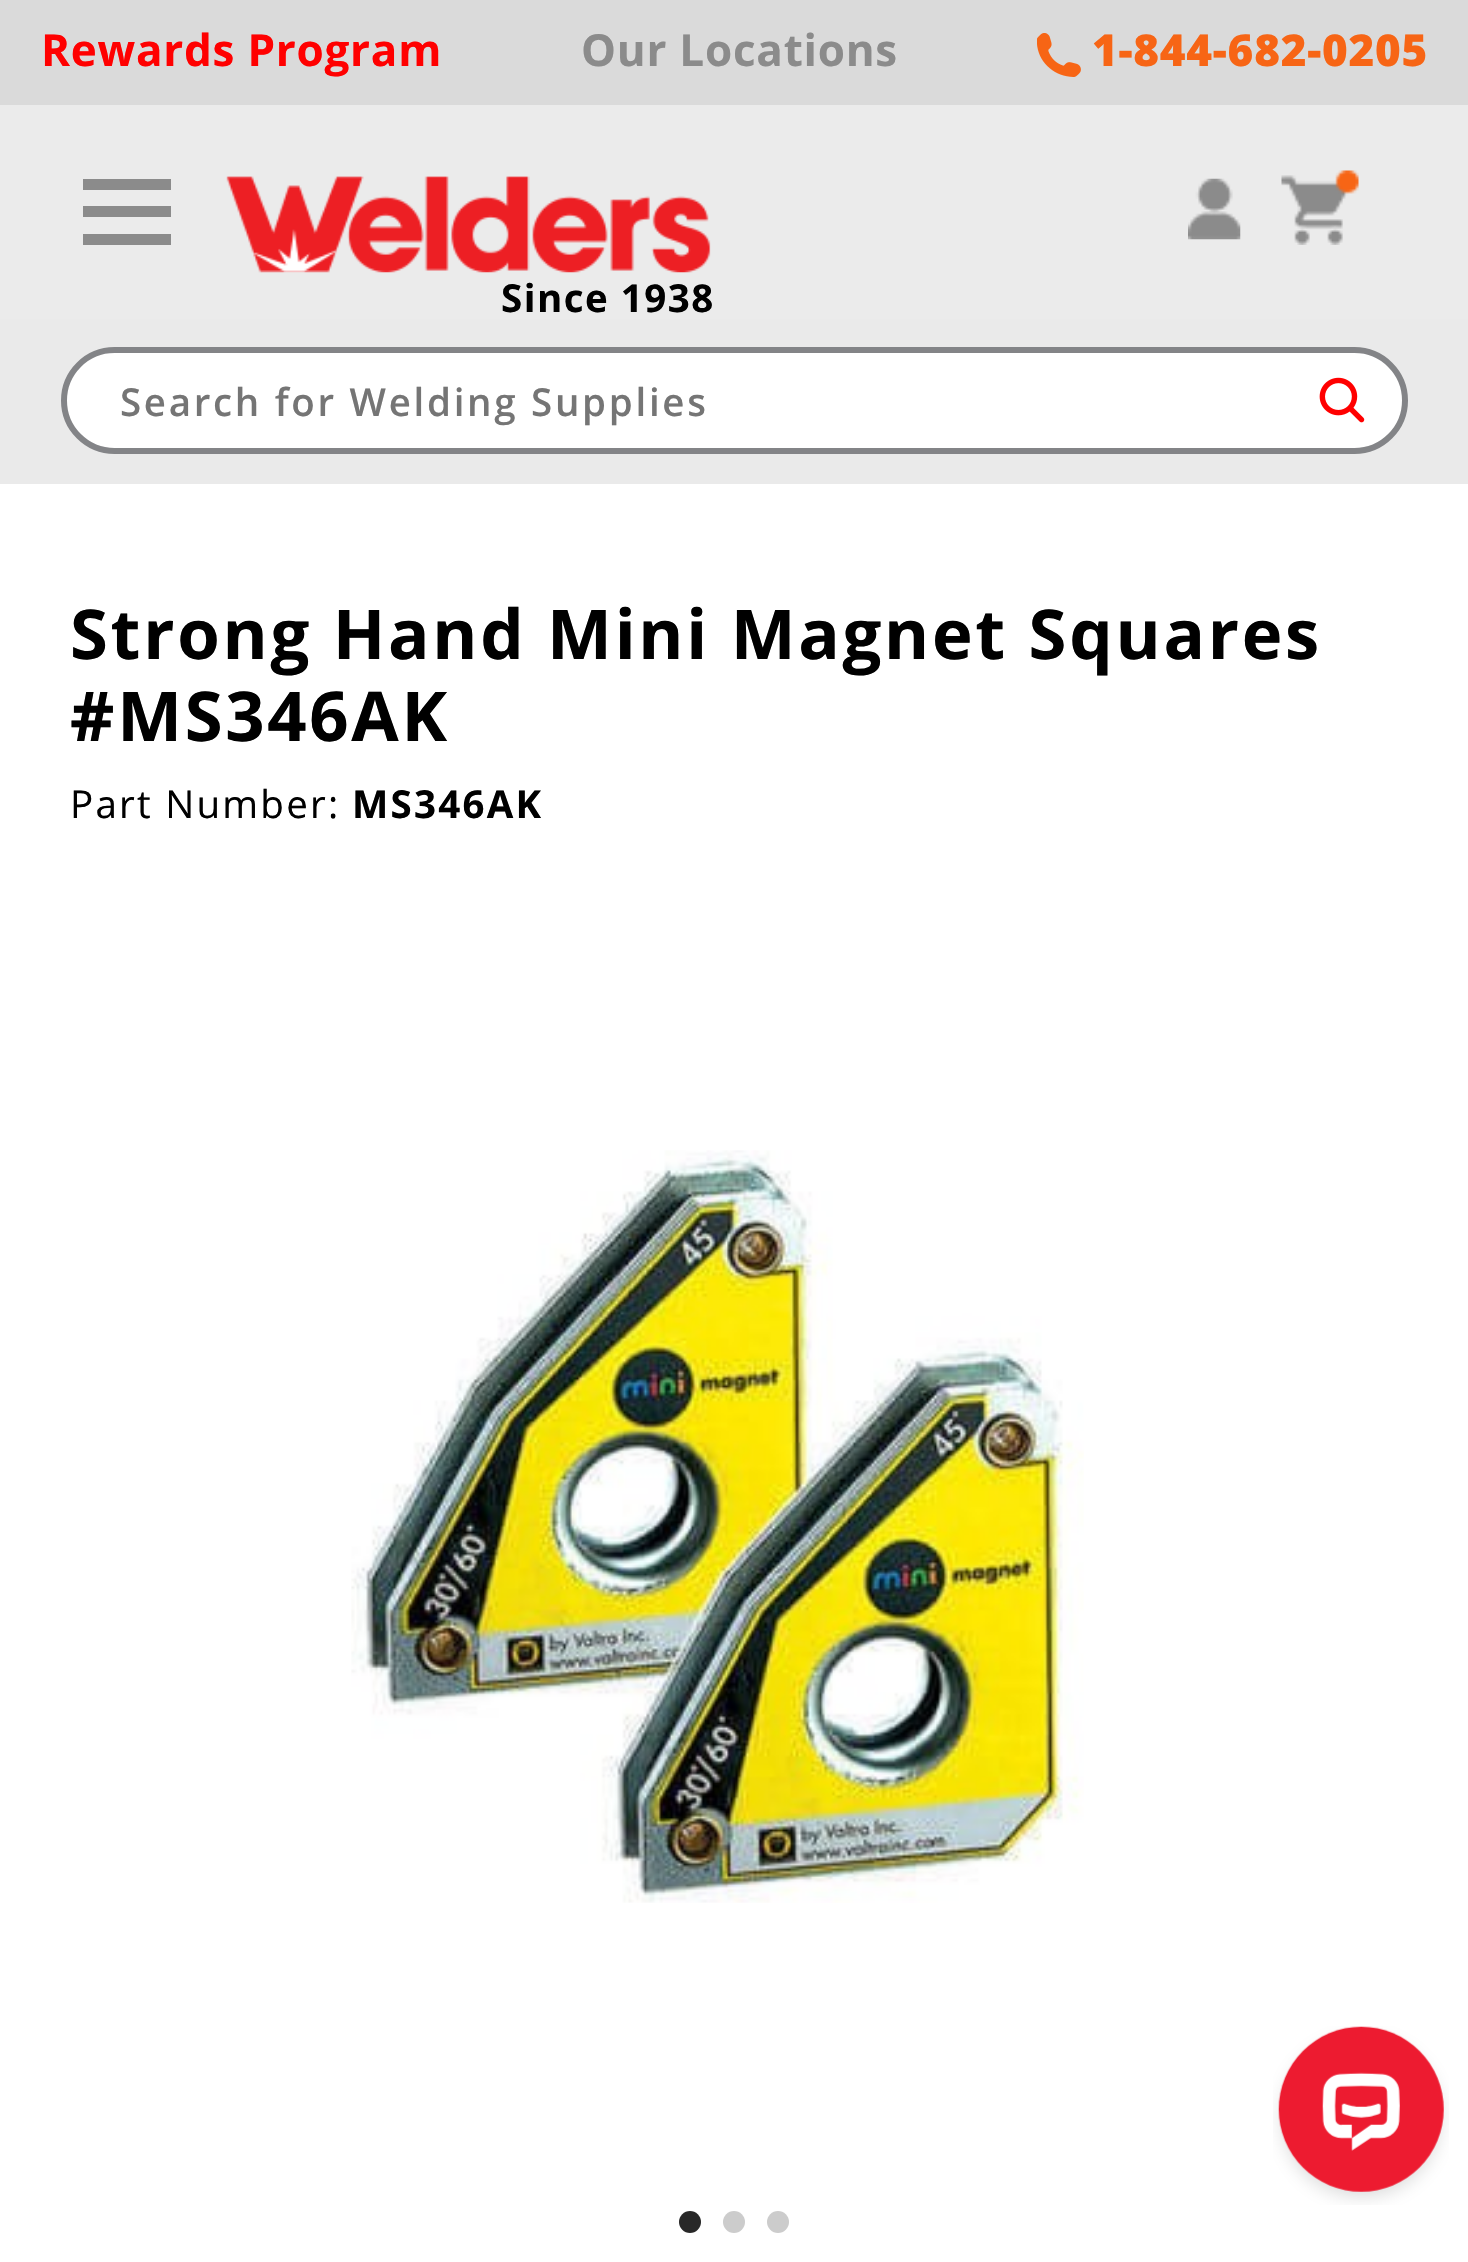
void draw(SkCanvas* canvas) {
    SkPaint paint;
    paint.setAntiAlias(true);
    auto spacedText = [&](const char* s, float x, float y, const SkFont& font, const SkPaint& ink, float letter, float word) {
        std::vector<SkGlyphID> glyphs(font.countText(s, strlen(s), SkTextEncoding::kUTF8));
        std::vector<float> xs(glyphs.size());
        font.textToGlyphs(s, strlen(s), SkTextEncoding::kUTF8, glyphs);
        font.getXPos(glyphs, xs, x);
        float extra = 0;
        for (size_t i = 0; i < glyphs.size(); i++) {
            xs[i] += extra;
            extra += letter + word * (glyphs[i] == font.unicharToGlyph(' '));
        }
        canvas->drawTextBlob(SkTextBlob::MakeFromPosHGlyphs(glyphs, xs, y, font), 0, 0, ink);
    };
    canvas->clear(0xFFFFFFFF);
    paint.setColor(0xFFDADADA);
    canvas->drawRect(SkRect::MakeXYWH(0, 0, 1468, 105), paint);
    SkFont font1(fontMgr->matchFamilyStyle("Open Sans", SkFontStyle::Bold()), 44);
    font1.setSubpixel(true);
    paint.setColor(0xFFFF0000);
    spacedText("Rewards Program", 41, 66, font1, paint, 0.75f, 0);
    paint.setColor(0xFF8B8B8B);
    spacedText("Our Locations", 581, 66, font1, paint, 0.75f, 0);
    canvas->drawImageRect(SkImages::DeferredFromEncodedData(SkData::MakeFromFileName("img1.png")), SkRect::MakeXYWH(1037, 33, 44, 44), SkSamplingOptions());
    SkFont font2(fontMgr->matchFamilyStyle("Open Sans", SkFontStyle(800, SkFontStyle::kNormal_Width, SkFontStyle::kUpright_Slant)), 44);
    font2.setSubpixel(true);
    paint.setColor(0xFFF76515);
    spacedText("1-844-682-0205", 1092, 66, font2, paint, 0.75f, 0);
    paint.setColor(0xFFEBEBEB);
    canvas->drawRect(SkRect::MakeXYWH(0, 105, 1468, 214), paint);
    paint.setColor(0xFF8B8B8B);
    canvas->drawRect(SkRect::MakeXYWH(83, 206, 88, 11), paint);
    canvas->drawRect(SkRect::MakeXYWH(83, 179, 88, 11), paint);
    canvas->drawRect(SkRect::MakeXYWH(83, 234, 88, 11), paint);
    canvas->drawImageRect(SkImages::DeferredFromEncodedData(SkData::MakeFromFileName("img2.png")), SkRect::MakeXYWH(1188, 178, 53, 62), SkSamplingOptions());
    canvas->drawImageRect(SkImages::DeferredFromEncodedData(SkData::MakeFromFileName("img3.png")), SkRect::MakeXYWH(1281, 170, 78, 75), SkSamplingOptions());
    canvas->drawImageRect(SkImages::DeferredFromEncodedData(SkData::MakeFromFileName("img4.png")), SkRect::MakeXYWH(226, 176, 485, 97), SkSamplingOptions());
    SkFont font3(fontMgr->matchFamilyStyle("Open Sans", SkFontStyle::Bold()), 38.5f);
    font3.setSubpixel(true);
    paint.setColor(0xFF000000);
    spacedText("Since 1938", 501, 312, font3, paint, 1.5f, 0);
    paint.setColor(0xFFEAEAEA);
    canvas->drawRect(SkRect::MakeXYWH(0, 319, 1468, 165), paint);
    paint.setColor(0xFFFFFFFF);
    canvas->drawRoundRect(SkRect::MakeXYWH(66, 352, 1337, 96), 48, 48, paint);
    paint.setStyle(SkPaint::kStroke_Style);
    paint.setStrokeWidth(6);
    paint.setColor(0xFF838487);
    canvas->drawRoundRect(SkRect::MakeXYWH(64, 350, 1341, 101), 50.5f, 50.5f, paint);
    SkFont font4(fontMgr->matchFamilyStyle("Open Sans", SkFontStyle(600, SkFontStyle::kNormal_Width, SkFontStyle::kUpright_Slant)), 38.5f);
    font4.setSubpixel(true);
    paint.setStyle(SkPaint::kFill_Style);
    paint.setColor(0xFF757575);
    spacedText("Search for Welding Supplies", 120, 416, font4, paint, 2.7f, 0);
    canvas->drawImageRect(SkImages::DeferredFromEncodedData(SkData::MakeFromFileName("img5.png")), SkRect::MakeXYWH(1319, 377, 46, 46), SkSamplingOptions());
    SkFont font5(fontMgr->matchFamilyStyle("Open Sans", SkFontStyle::Bold()), 68.75f);
    font5.setSubpixel(true);
    paint.setColor(0xFF000000);
    spacedText("Strong Hand Mini Magnet Squares", 70, 659, font5, paint, 2.75f, 0);
    spacedText("#MS346AK", 70, 741, font5, paint, 2.75f, 0);
    SkFont font6(fontMgr->matchFamilyStyle("Open Sans", SkFontStyle::Normal()), 38.5f);
    font6.setSubpixel(true);
    spacedText("Part Number:", 70, 818, font6, paint, 2.25f, 0);
    spacedText("MS346AK", 352, 818, font3, paint, 2.25f, 0);
    canvas->drawImageRect(SkImages::DeferredFromEncodedData(SkData::MakeFromFileName("img6.png")), SkRect::MakeXYWH(351, 1150, 733, 753), SkSamplingOptions());
    paint.setColor(0xFF282828);
    canvas->drawCircle(690, 2222, 11, paint);
    paint.setColor(0xFFCCCCCC);
    canvas->drawCircle(734, 2222, 11, paint);
    canvas->drawCircle(778, 2222, 11, paint);
    canvas->drawImageRect(SkImages::DeferredFromEncodedData(SkData::MakeFromFileName("img7.png")), SkRect::MakeXYWH(1273, 2026, 176, 179), SkSamplingOptions());
}
